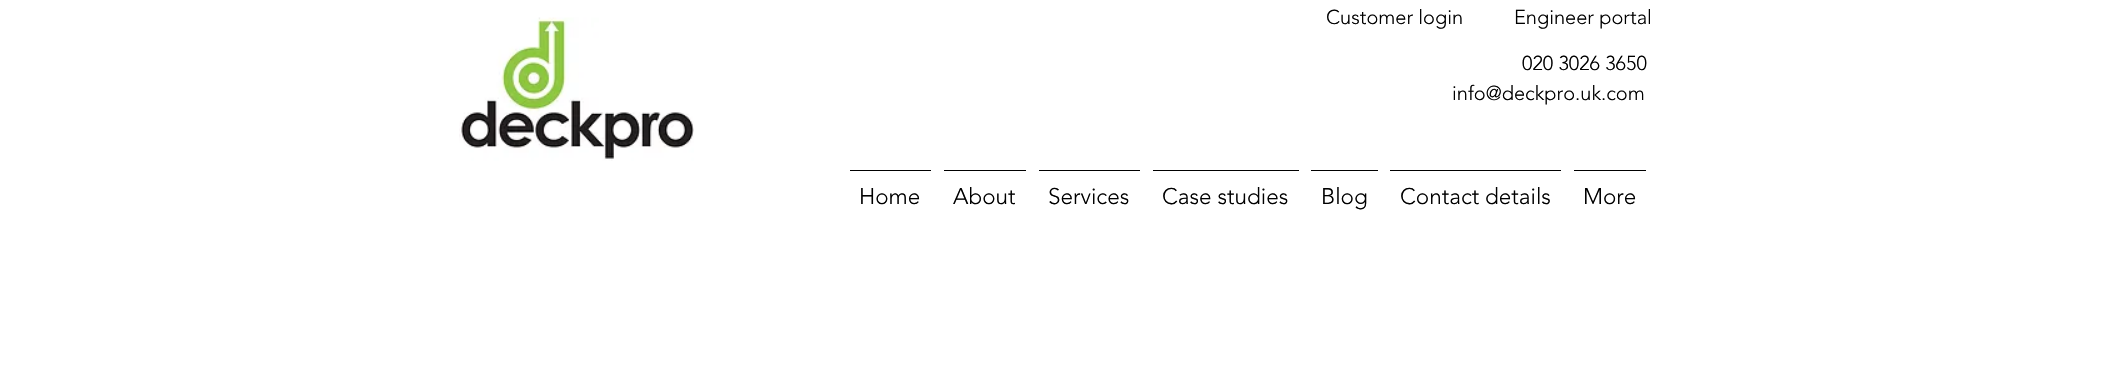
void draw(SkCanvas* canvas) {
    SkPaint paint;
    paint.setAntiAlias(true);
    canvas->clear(0xFFFFFFFF);
    canvas->drawImageRect(SkImages::DeferredFromEncodedData(SkData::MakeFromFileName("img1.png")), SkRect::MakeXYWH(459, 17, 235, 144), SkSamplingOptions());
    SkFont font1(fontMgr->matchFamilyStyle("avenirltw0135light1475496", SkFontStyle(300, SkFontStyle::kNormal_Width, SkFontStyle::kUpright_Slant)), 20);
    font1.setSubpixel(true);
    paint.setColor(0xFF000000);
    canvas->drawString("Customer login", 1326, 24, font1, paint);
    canvas->drawString("Engineer portal", 1514, 24, font1, paint);
    canvas->drawString("020 3026 3650", 1522, 70, font1, paint);
    canvas->drawString("info@deckpro.uk.com", 1452, 100, font1, paint);
    canvas->drawRect(SkRect::MakeXYWH(850, 170, 81, 1), paint);
    SkFont font2(fontMgr->matchFamilyStyle("avenirltw0135light1475496", SkFontStyle(300, SkFontStyle::kNormal_Width, SkFontStyle::kUpright_Slant)), 22.5f);
    font2.setSubpixel(true);
    canvas->drawString("Home", 859, 204, font2, paint);
    canvas->drawRect(SkRect::MakeXYWH(944, 170, 82, 1), paint);
    canvas->drawString("About", 953, 204, font2, paint);
    canvas->drawRect(SkRect::MakeXYWH(1039, 170, 101, 1), paint);
    canvas->drawString("Services", 1048, 204, font2, paint);
    canvas->drawRect(SkRect::MakeXYWH(1153, 170, 146, 1), paint);
    canvas->drawString("Case studies", 1162, 204, font2, paint);
    canvas->drawRect(SkRect::MakeXYWH(1311, 170, 67, 1), paint);
    canvas->drawString("Blog", 1321, 204, font2, paint);
    canvas->drawRect(SkRect::MakeXYWH(1390, 170, 171, 1), paint);
    canvas->drawString("Contact details", 1400, 204, font2, paint);
    canvas->drawRect(SkRect::MakeXYWH(1574, 170, 72, 1), paint);
    canvas->drawString("More", 1583, 204, font2, paint);
}
